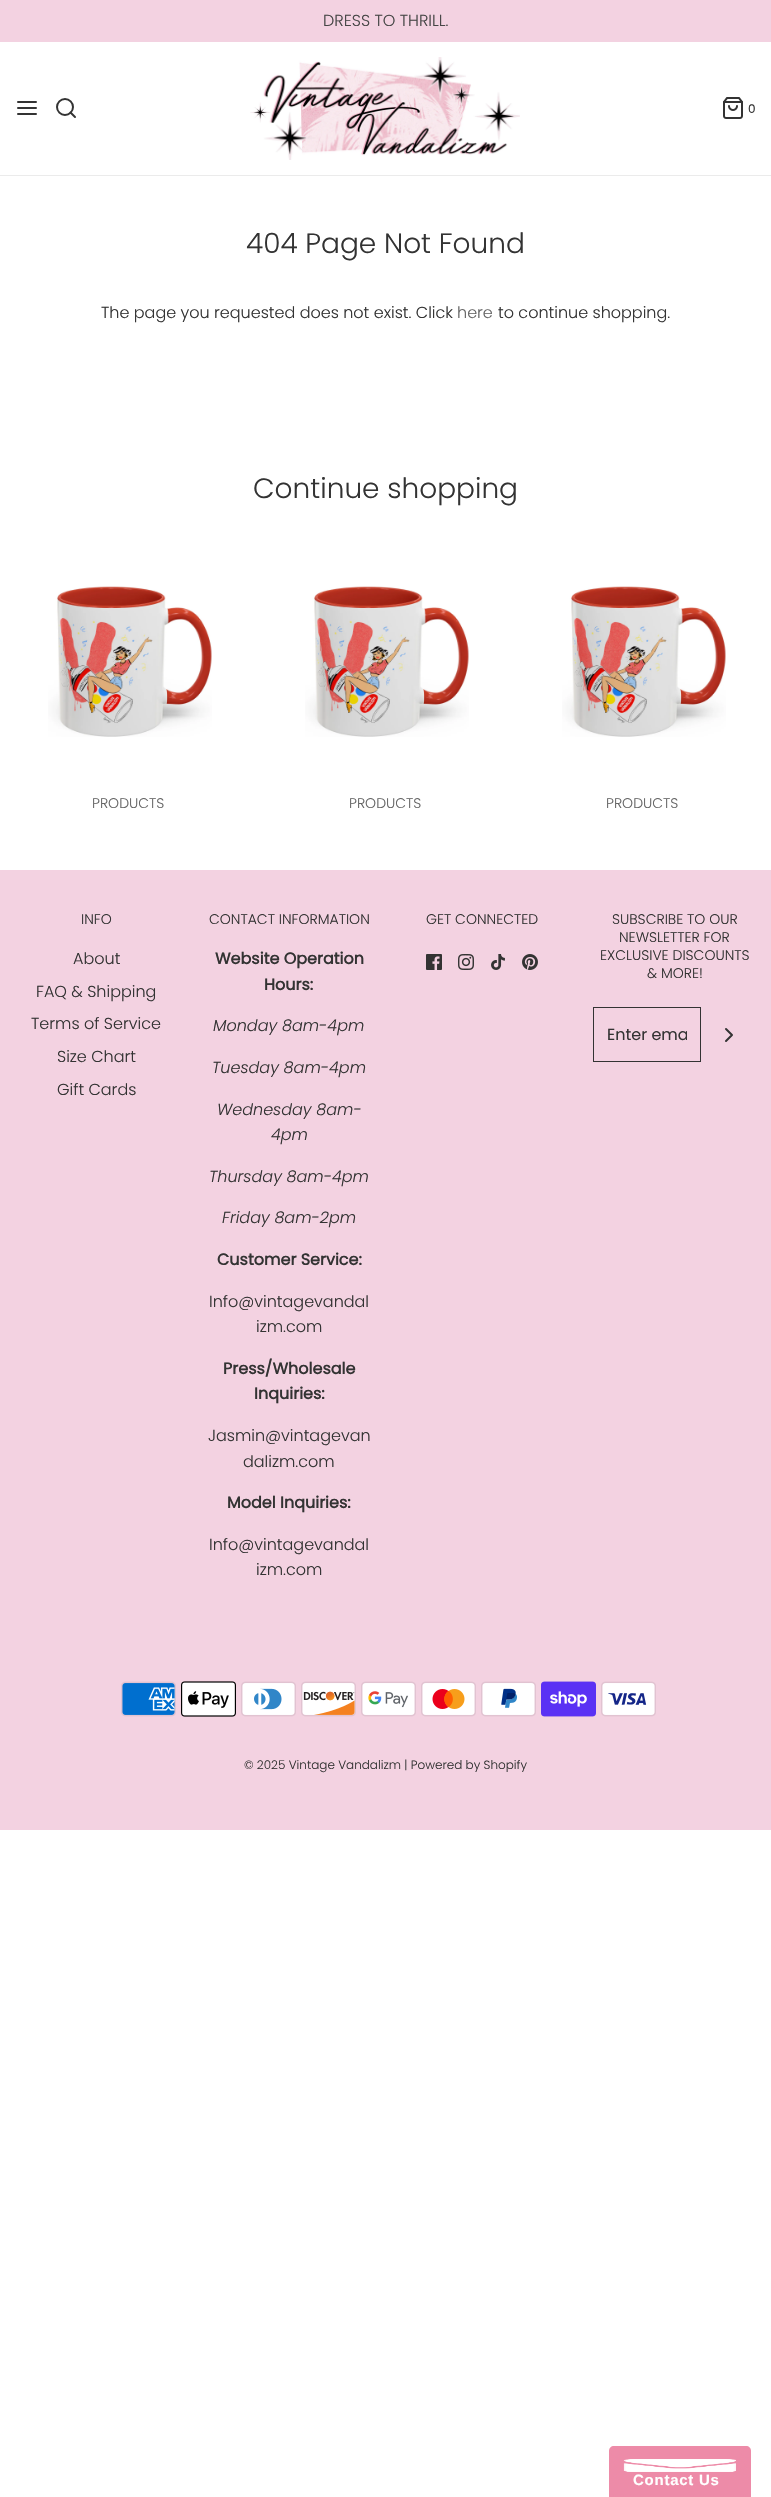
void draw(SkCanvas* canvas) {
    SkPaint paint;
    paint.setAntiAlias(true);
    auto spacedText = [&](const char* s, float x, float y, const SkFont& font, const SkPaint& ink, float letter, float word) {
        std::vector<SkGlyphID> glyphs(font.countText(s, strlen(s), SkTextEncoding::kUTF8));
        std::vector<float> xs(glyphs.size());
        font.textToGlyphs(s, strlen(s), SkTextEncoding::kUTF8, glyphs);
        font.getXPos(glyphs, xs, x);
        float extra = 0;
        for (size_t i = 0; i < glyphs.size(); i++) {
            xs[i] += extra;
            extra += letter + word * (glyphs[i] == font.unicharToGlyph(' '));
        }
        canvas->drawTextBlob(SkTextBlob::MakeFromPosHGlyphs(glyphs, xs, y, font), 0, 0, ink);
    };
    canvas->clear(0xFFFFFFFF);
    paint.setColor(0xFFF3D2E1);
    canvas->drawRect(SkRect::MakeXYWH(0, 0, 771, 42), paint);
    SkFont font1(fontMgr->matchFamilyStyle("Poppins", SkFontStyle(300, SkFontStyle::kNormal_Width, SkFontStyle::kUpright_Slant)), 16);
    font1.setSubpixel(true);
    paint.setColor(0xFF464646);
    canvas->drawString("DRESS TO THRILL.", 323, 26, font1, paint);
    paint.setColor(0xFFEBEBEB);
    canvas->drawRect(SkRect::MakeXYWH(0, 175, 771, 1), paint);
    paint.setStyle(SkPaint::kStroke_Style);
    paint.setStrokeWidth(2);
    paint.setStrokeCap(SkPaint::kRound_Cap);
    paint.setStrokeJoin(SkPaint::kRound_Join);
    paint.setColor(0xFF333333);
    canvas->drawPath(SkPathBuilder().moveTo(18, 108).lineTo(36, 108).moveTo(18, 102).lineTo(36, 102).moveTo(18, 114).lineTo(36, 114).detach(), paint);
    paint.setStrokeCap(SkPaint::kButt_Cap);
    paint.setStrokeJoin(SkPaint::kMiter_Join);
    canvas->drawCircle(65, 107, 8, paint);
    paint.setStrokeCap(SkPaint::kRound_Cap);
    paint.setStrokeJoin(SkPaint::kRound_Join);
    canvas->drawPath(SkPathBuilder().moveTo(75, 117).lineTo(70.5f, 112.5f).detach(), paint);
    canvas->drawImageRect(SkImages::DeferredFromEncodedData(SkData::MakeFromFileName("img1.png")), SkRect::MakeXYWH(250, 57, 270, 103), SkSamplingOptions());
    canvas->drawImageRect(SkImages::DeferredFromEncodedData(SkData::MakeFromFileName("img2.png")), SkRect::MakeXYWH(723, 97, 20, 22), SkSamplingOptions());
    SkFont font2(fontMgr->matchFamilyStyle("Poppins", SkFontStyle::Normal()), 12);
    font2.setSubpixel(true);
    paint.setStyle(SkPaint::kFill_Style);
    canvas->drawString("0", 748, 113, font2, paint);
    SkFont font3(fontMgr->matchFamilyStyle("Poppins", SkFontStyle(300, SkFontStyle::kNormal_Width, SkFontStyle::kUpright_Slant)), 28);
    font3.setSubpixel(true);
    canvas->drawString("404 Page Not Found", 246, 253, font3, paint);
    canvas->drawString("The page you requested does not exist. Click", 101, 318, font1, paint);
    paint.setColor(0xFF656565);
    canvas->drawString("here", 457, 318, font1, paint);
    paint.setColor(0xFF333333);
    canvas->drawString("to continue shopping.", 498, 318, font1, paint);
    canvas->drawString("Continue shopping", 253, 498, font3, paint);
    canvas->drawImageRect(SkImages::DeferredFromEncodedData(SkData::MakeFromFileName("img3.png")), SkRect::MakeXYWH(48, 586, 164, 151), SkSamplingOptions());
    SkFont font4(fontMgr->matchFamilyStyle("Poppins", SkFontStyle(300, SkFontStyle::kNormal_Width, SkFontStyle::kUpright_Slant)), 14);
    font4.setSubpixel(true);
    paint.setColor(0xFF656565);
    canvas->drawString("PRODUCTS", 92, 808, font4, paint);
    canvas->drawImageRect(SkImages::DeferredFromEncodedData(SkData::MakeFromFileName("img3.png")), SkRect::MakeXYWH(305, 586, 164, 151), SkSamplingOptions());
    canvas->drawString("PRODUCTS", 349, 808, font4, paint);
    canvas->drawImageRect(SkImages::DeferredFromEncodedData(SkData::MakeFromFileName("img3.png")), SkRect::MakeXYWH(562, 586, 164, 151), SkSamplingOptions());
    canvas->drawString("PRODUCTS", 606, 808, font4, paint);
    paint.setColor(0xFFF3D2E1);
    canvas->drawRect(SkRect::MakeXYWH(0, 870, 771, 960), paint);
    paint.setColor(0xFF333333);
    canvas->drawString("INFO", 81, 924, font4, paint);
    canvas->drawString("About", 73, 964, font1, paint);
    canvas->drawString("FAQ & Shipping", 36, 997, font1, paint);
    canvas->drawString("Terms of Service", 31, 1029, font1, paint);
    canvas->drawString("Size Chart", 57, 1062, font1, paint);
    canvas->drawString("Gift Cards", 57, 1095, font1, paint);
    canvas->drawString("CONTACT INFORMATION", 209, 924, font4, paint);
    SkFont font5(fontMgr->matchFamilyStyle("Poppins", SkFontStyle::Bold()), 16);
    font5.setSubpixel(true);
    canvas->drawString("Website Operation", 215, 964, font5, paint);
    canvas->drawString("Hours:", 264, 990, font5, paint);
    SkFont font6(fontMgr->matchFamilyStyle("Poppins", SkFontStyle(300, SkFontStyle::kNormal_Width, SkFontStyle::kItalic_Slant)), 16);
    font6.setSubpixel(true);
    canvas->drawString("Monday 8am-4pm", 213, 1031, font6, paint);
    canvas->drawString("Tuesday 8am-4pm", 212, 1073, font6, paint);
    canvas->drawString("Wednesday 8am-", 217, 1115, font6, paint);
    canvas->drawString("4pm", 271, 1140, font6, paint);
    canvas->drawString("Thursday 8am-4pm", 209, 1182, font6, paint);
    canvas->drawString("Friday 8am-2pm", 222, 1223, font6, paint);
    canvas->drawString("Customer Service:", 217, 1265, font5, paint);
    canvas->drawString("Info@vintagevandal", 209, 1307, font1, paint);
    canvas->drawString("izm.com", 256, 1332, font1, paint);
    canvas->drawString("Press/Wholesale", 223, 1374, font5, paint);
    canvas->drawString("Inquiries:", 254, 1399, font5, paint);
    canvas->drawString("Jasmin@vintagevan", 208, 1441, font1, paint);
    canvas->drawString("dalizm.com", 243, 1467, font1, paint);
    canvas->drawString("Model Inquiries:", 227, 1508, font5, paint);
    canvas->drawString("Info@vintagevandal", 209, 1550, font1, paint);
    canvas->drawString("izm.com", 256, 1575, font1, paint);
    canvas->drawString("GET CONNECTED", 426, 924, font4, paint);
    canvas->drawImageRect(SkImages::DeferredFromEncodedData(SkData::MakeFromFileName("img4.png")), SkRect::MakeXYWH(426, 954, 16, 16), SkSamplingOptions());
    canvas->drawImageRect(SkImages::DeferredFromEncodedData(SkData::MakeFromFileName("img5.png")), SkRect::MakeXYWH(458, 954, 16, 16), SkSamplingOptions());
    canvas->drawImageRect(SkImages::DeferredFromEncodedData(SkData::MakeFromFileName("img6.png")), SkRect::MakeXYWH(491, 954, 14, 16), SkSamplingOptions());
    canvas->drawImageRect(SkImages::DeferredFromEncodedData(SkData::MakeFromFileName("img7.png")), SkRect::MakeXYWH(522, 954, 16, 16), SkSamplingOptions());
    canvas->drawString("SUBSCRIBE TO OUR", 612, 924, font4, paint);
    canvas->drawString("NEWSLETTER FOR", 619, 942, font4, paint);
    canvas->drawString("EXCLUSIVE DISCOUNTS", 600, 960, font4, paint);
    canvas->drawString("& MORE!", 647, 978, font4, paint);
    paint.setStyle(SkPaint::kStroke_Style);
    paint.setStrokeWidth(1);
    paint.setStrokeCap(SkPaint::kButt_Cap);
    paint.setStrokeJoin(SkPaint::kMiter_Join);
    canvas->drawRect(SkRect::MakeXYWH(593.5f, 1007.5f, 107, 54), paint);
    canvas->save();
    canvas->clipRect(SkRect::MakeXYWH(607, 1022, 80, 25));
    SkFont font7(fontMgr->matchFamilyStyle("Poppins", SkFontStyle::Normal()), 16);
    font7.setSubpixel(true);
    paint.setStyle(SkPaint::kFill_Style);
    canvas->drawString("Enter ema", 607, 1040, font7, paint);
    canvas->restore();
    paint.setStyle(SkPaint::kStroke_Style);
    paint.setStrokeWidth(2);
    paint.setStrokeCap(SkPaint::kRound_Cap);
    paint.setStrokeJoin(SkPaint::kRound_Join);
    canvas->drawPath(SkPathBuilder().moveTo(726, 1041).lineTo(732, 1035).lineTo(726, 1029).detach(), paint);
    canvas->drawImageRect(SkImages::DeferredFromEncodedData(SkData::MakeFromFileName("img8.png")), SkRect::MakeXYWH(121, 1681, 55, 36), SkSamplingOptions());
    canvas->drawImageRect(SkImages::DeferredFromEncodedData(SkData::MakeFromFileName("img9.png")), SkRect::MakeXYWH(181, 1681, 55, 36), SkSamplingOptions());
    canvas->drawImageRect(SkImages::DeferredFromEncodedData(SkData::MakeFromFileName("img10.png")), SkRect::MakeXYWH(241, 1681, 55, 36), SkSamplingOptions());
    canvas->drawImageRect(SkImages::DeferredFromEncodedData(SkData::MakeFromFileName("img11.png")), SkRect::MakeXYWH(301, 1681, 55, 36), SkSamplingOptions());
    canvas->drawImageRect(SkImages::DeferredFromEncodedData(SkData::MakeFromFileName("img12.png")), SkRect::MakeXYWH(361, 1681, 55, 36), SkSamplingOptions());
    canvas->drawImageRect(SkImages::DeferredFromEncodedData(SkData::MakeFromFileName("img13.png")), SkRect::MakeXYWH(421, 1681, 55, 36), SkSamplingOptions());
    canvas->drawImageRect(SkImages::DeferredFromEncodedData(SkData::MakeFromFileName("img14.png")), SkRect::MakeXYWH(481, 1681, 55, 36), SkSamplingOptions());
    canvas->drawImageRect(SkImages::DeferredFromEncodedData(SkData::MakeFromFileName("img15.png")), SkRect::MakeXYWH(541, 1681, 55, 36), SkSamplingOptions());
    canvas->drawImageRect(SkImages::DeferredFromEncodedData(SkData::MakeFromFileName("img16.png")), SkRect::MakeXYWH(601, 1681, 55, 36), SkSamplingOptions());
    SkFont font8(fontMgr->matchFamilyStyle("Poppins", SkFontStyle(300, SkFontStyle::kNormal_Width, SkFontStyle::kUpright_Slant)), 12);
    font8.setSubpixel(true);
    paint.setStyle(SkPaint::kFill_Style);
    canvas->drawString("© 2025 Vintage Vandalizm | Powered by Shopify", 244, 1769, font8, paint);
    paint.setColor(0xFFED8BA8);
    canvas->drawPath(SkPathBuilder().moveTo(614, 2446).lineTo(746, 2446).cubicTo(749, 2446, 751, 2448, 751, 2451).lineTo(751, 2497).lineTo(609, 2497).lineTo(609, 2451).cubicTo(609, 2448, 611, 2446, 614, 2446).close().detach(), paint);
    canvas->drawImageRect(SkImages::DeferredFromEncodedData(SkData::MakeFromFileName("img17.png")), SkRect::MakeXYWH(623, 2459, 113, 13), SkSamplingOptions());
    SkFont font9(fontMgr->matchFamilyStyle("Liberation Sans", SkFontStyle::Bold()), 15);
    font9.setSubpixel(true);
    paint.setColor(0xFFFFFFFF);
    spacedText("Contact Us", 633, 2485, font9, paint, 0.75f, 0);
}
